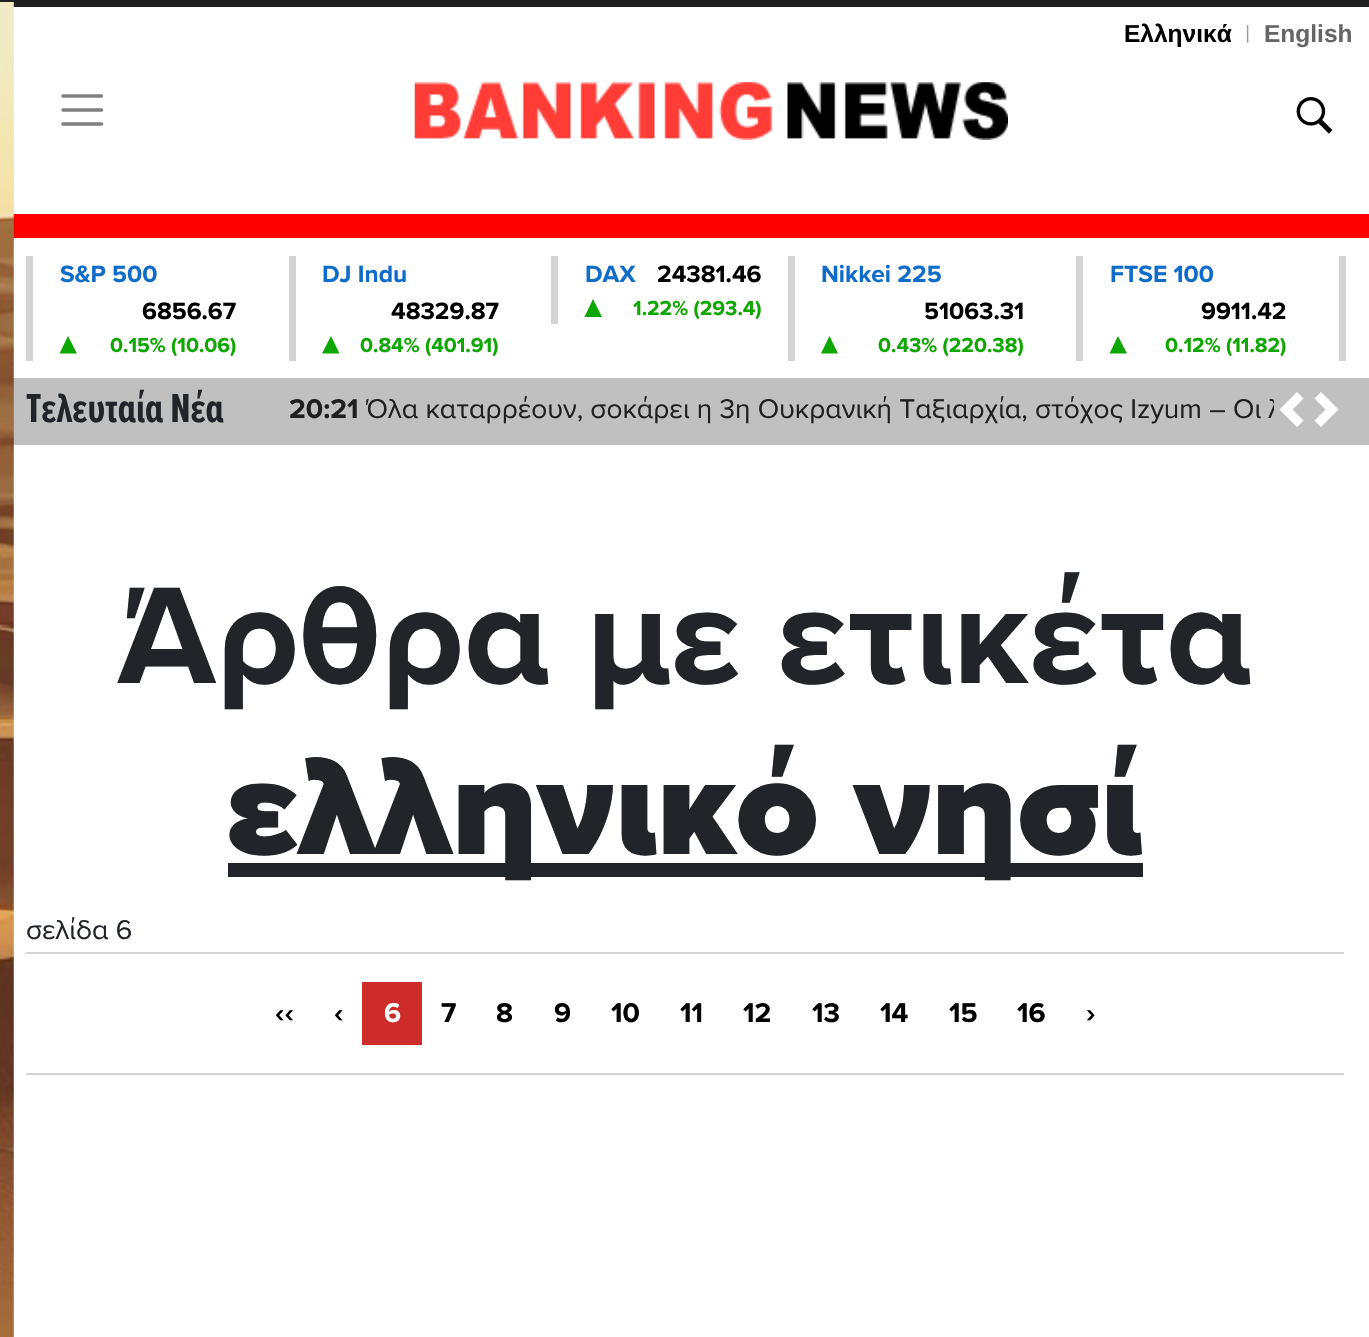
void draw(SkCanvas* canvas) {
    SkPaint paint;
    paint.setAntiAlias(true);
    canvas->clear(0xFFFFFFFF);
    paint.setColor(0xFF201F1F);
    canvas->drawRect(SkRect::MakeXYWH(0, 0, 1369, 7), paint);
    paint.setColor(0xFFFF0000);
    canvas->drawRect(SkRect::MakeXYWH(13, 214, 1356, 24), paint);
    paint.setColor(0xFFC0C0C0);
    canvas->drawRect(SkRect::MakeXYWH(13, 378, 1356, 67), paint);
    canvas->drawImageRect(SkImages::DeferredFromEncodedData(SkData::MakeFromFileName("img1.png")), SkRect::MakeXYWH(0, 2, 14, 1335), SkSamplingOptions());
    SkFont font1(fontMgr->matchFamilyStyle("Liberation Sans", SkFontStyle::Bold()), 24.5f);
    font1.setSubpixel(true);
    paint.setColor(0xFF000000);
    canvas->drawString("Ελληνικά", 1124, 42, font1, paint);
    SkFont font2(fontMgr->matchFamilyStyle("Proxima Nova", SkFontStyle::Normal()), 24.5f);
    font2.setSubpixel(true);
    paint.setColor(0xFF999999);
    canvas->drawString("|", 1245, 42, font2, paint);
    paint.setColor(0xFF666666);
    canvas->drawString("English", 1264, 42, font1, paint);
    paint.setStyle(SkPaint::kStroke_Style);
    paint.setStrokeWidth(3.5f);
    paint.setStrokeCap(SkPaint::kRound_Cap);
    paint.setColor(0xFF808080);
    canvas->drawPath(SkPathBuilder().moveTo(63, 96).lineTo(101.5f, 96).moveTo(63, 110).lineTo(101.5f, 110).moveTo(63, 124).lineTo(101.5f, 124).detach(), paint);
    canvas->drawImageRect(SkImages::DeferredFromEncodedData(SkData::MakeFromFileName("img2.png")), SkRect::MakeXYWH(414, 82, 594, 58), SkSamplingOptions());
    canvas->drawImageRect(SkImages::DeferredFromEncodedData(SkData::MakeFromFileName("img3.png")), SkRect::MakeXYWH(1296, 97, 37, 37), SkSamplingOptions());
    paint.setStyle(SkPaint::kFill_Style);
    paint.setColor(0xFFD4D4D4);
    canvas->drawRect(SkRect::MakeXYWH(26, 256, 7, 105), paint);
    SkFont font3(fontMgr->matchFamilyStyle("Proxima Nova", SkFontStyle::Bold()), 24.5f);
    font3.setSubpixel(true);
    paint.setColor(0xFF0F6CC9);
    canvas->drawString("S&P 500", 60, 282, font3, paint);
    paint.setColor(0xFF000000);
    canvas->drawString("6856.67", 142, 319, font3, paint);
    paint.setColor(0xFF0EA600);
    canvas->drawPath(SkPathBuilder().moveTo(77, 353.5f).lineTo(59.5f, 353.5f).lineTo(68, 336).close().detach(), paint);
    SkFont font4(fontMgr->matchFamilyStyle("Proxima Nova", SkFontStyle::Bold()), 21);
    font4.setSubpixel(true);
    canvas->drawString("0.15% (10.06)", 110, 352, font4, paint);
    paint.setColor(0xFFD4D4D4);
    canvas->drawRect(SkRect::MakeXYWH(289, 256, 7, 105), paint);
    paint.setColor(0xFF0F6CC9);
    canvas->drawString("DJ Indu", 322, 282, font3, paint);
    paint.setColor(0xFF000000);
    canvas->drawString("48329.87", 391, 319, font3, paint);
    paint.setColor(0xFF0EA600);
    canvas->drawPath(SkPathBuilder().moveTo(339.5f, 353.5f).lineTo(322, 353.5f).lineTo(331, 336).close().detach(), paint);
    canvas->drawString("0.84% (401.91)", 360, 352, font4, paint);
    paint.setColor(0xFFD4D4D4);
    canvas->drawRect(SkRect::MakeXYWH(551, 256, 7, 68), paint);
    paint.setColor(0xFF0F6CC9);
    canvas->drawString("DAX", 585, 282, font3, paint);
    paint.setColor(0xFF000000);
    canvas->drawString("24381.46", 657, 282, font3, paint);
    paint.setColor(0xFF0EA600);
    canvas->drawPath(SkPathBuilder().moveTo(602, 317).lineTo(584.5f, 317).lineTo(593, 299).close().detach(), paint);
    canvas->drawString("1.22% (293.4)", 633, 315, font4, paint);
    paint.setColor(0xFFD4D4D4);
    canvas->drawRect(SkRect::MakeXYWH(788, 256, 7, 105), paint);
    paint.setColor(0xFF0F6CC9);
    canvas->drawString("Nikkei 225", 821, 282, font3, paint);
    paint.setColor(0xFF000000);
    canvas->drawString("51063.31", 924, 319, font3, paint);
    paint.setColor(0xFF0EA600);
    canvas->drawPath(SkPathBuilder().moveTo(838, 353.5f).lineTo(821, 353.5f).lineTo(829.5f, 336).close().detach(), paint);
    canvas->drawString("0.43% (220.38)", 878, 352, font4, paint);
    paint.setColor(0xFFD4D4D4);
    canvas->drawRect(SkRect::MakeXYWH(1076, 256, 7, 105), paint);
    paint.setColor(0xFF0F6CC9);
    canvas->drawString("FTSE 100", 1110, 282, font3, paint);
    paint.setColor(0xFF000000);
    canvas->drawString("9911.42", 1201, 319, font3, paint);
    paint.setColor(0xFF0EA600);
    canvas->drawPath(SkPathBuilder().moveTo(1127, 353.5f).lineTo(1109.5f, 353.5f).lineTo(1118, 336).close().detach(), paint);
    canvas->drawString("0.12% (11.82)", 1165, 352, font4, paint);
    paint.setColor(0xFFD4D4D4);
    canvas->drawRect(SkRect::MakeXYWH(1339, 256, 7, 105), paint);
    SkFont font5(fontMgr->matchFamilyStyle("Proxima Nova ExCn", SkFontStyle::Bold()), 42);
    font5.setSubpixel(true);
    paint.setColor(0xFF212529);
    canvas->drawString("Τελευταία Νέα", 26, 422, font5, paint);
    SkFont font6(fontMgr->matchFamilyStyle("Proxima Nova", SkFontStyle::Bold()), 28);
    font6.setSubpixel(true);
    paint.setColor(0xFF201F1F);
    canvas->drawString("20:21", 289, 418, font6, paint);
    SkFont font7(fontMgr->matchFamilyStyle("Proxima Nova", SkFontStyle::Normal()), 28);
    font7.setSubpixel(true);
    canvas->drawString("Όλα καταρρέουν, σοκάρει η 3η Ουκρανική Ταξιαρχία, στόχος Izyum – Οι λ", 366, 418, font7, paint);
    paint.setColor(0xFFC0C0C0);
    canvas->drawRect(SkRect::MakeXYWH(1274, 400, 8, 18), paint);
    paint.setColor(0xFFFFFFFF);
    canvas->drawPath(SkPathBuilder().moveTo(1297, 392).lineTo(1279.5f, 409.5f).lineTo(1297, 427).lineTo(1303.5f, 420.5f).lineTo(1292.5f, 409.5f).lineTo(1303.5f, 398.5f).close().moveTo(1321, 392).lineTo(1314.5f, 398.5f).lineTo(1325.5f, 409.5f).lineTo(1314.5f, 420.5f).lineTo(1321, 427).lineTo(1338.5f, 409.5f).close().detach(), paint);
    SkFont font8(fontMgr->matchFamilyStyle("Proxima Nova", SkFontStyle::Bold()), 142.75f);
    font8.setSubpixel(true);
    paint.setColor(0xFF212529);
    canvas->drawString("Άρθρα με ετικέτα", 118, 683, font8, paint);
    canvas->drawRect(SkRect::MakeXYWH(228, 863, 915, 14), paint);
    SkFont font9(fontMgr->matchFamilyStyle("Proxima Nova", SkFontStyle(900, SkFontStyle::kNormal_Width, SkFontStyle::kUpright_Slant)), 142.75f);
    font9.setSubpixel(true);
    canvas->drawString("ελληνικό νησί", 227, 854, font9, paint);
    canvas->drawString("σελίδα 6", 26, 939, font7, paint);
    paint.setColor(0xFFD3D3D3);
    canvas->drawRect(SkRect::MakeXYWH(26, 952, 1318, 2), paint);
    canvas->drawRect(SkRect::MakeXYWH(26, 1073, 1318, 2), paint);
    paint.setColor(0xFF000000);
    canvas->drawString("‹‹", 275, 1022, font6, paint);
    canvas->drawString("‹", 334, 1022, font6, paint);
    paint.setColor(0xFFCE2B2B);
    canvas->drawRect(SkRect::MakeXYWH(362, 982, 60, 63), paint);
    paint.setColor(0xFFFFFFFF);
    canvas->drawString("6", 384, 1022, font6, paint);
    paint.setColor(0xFF000000);
    canvas->drawString("7", 441, 1022, font6, paint);
    canvas->drawString("8", 496, 1022, font6, paint);
    canvas->drawString("9", 554, 1022, font6, paint);
    canvas->drawString("10", 611, 1022, font6, paint);
    canvas->drawString("11", 680, 1022, font6, paint);
    canvas->drawString("12", 743, 1022, font6, paint);
    canvas->drawString("13", 812, 1022, font6, paint);
    canvas->drawString("14", 880, 1022, font6, paint);
    canvas->drawString("15", 949, 1022, font6, paint);
    canvas->drawString("16", 1017, 1022, font6, paint);
    canvas->drawString("›", 1086, 1022, font6, paint);
}
